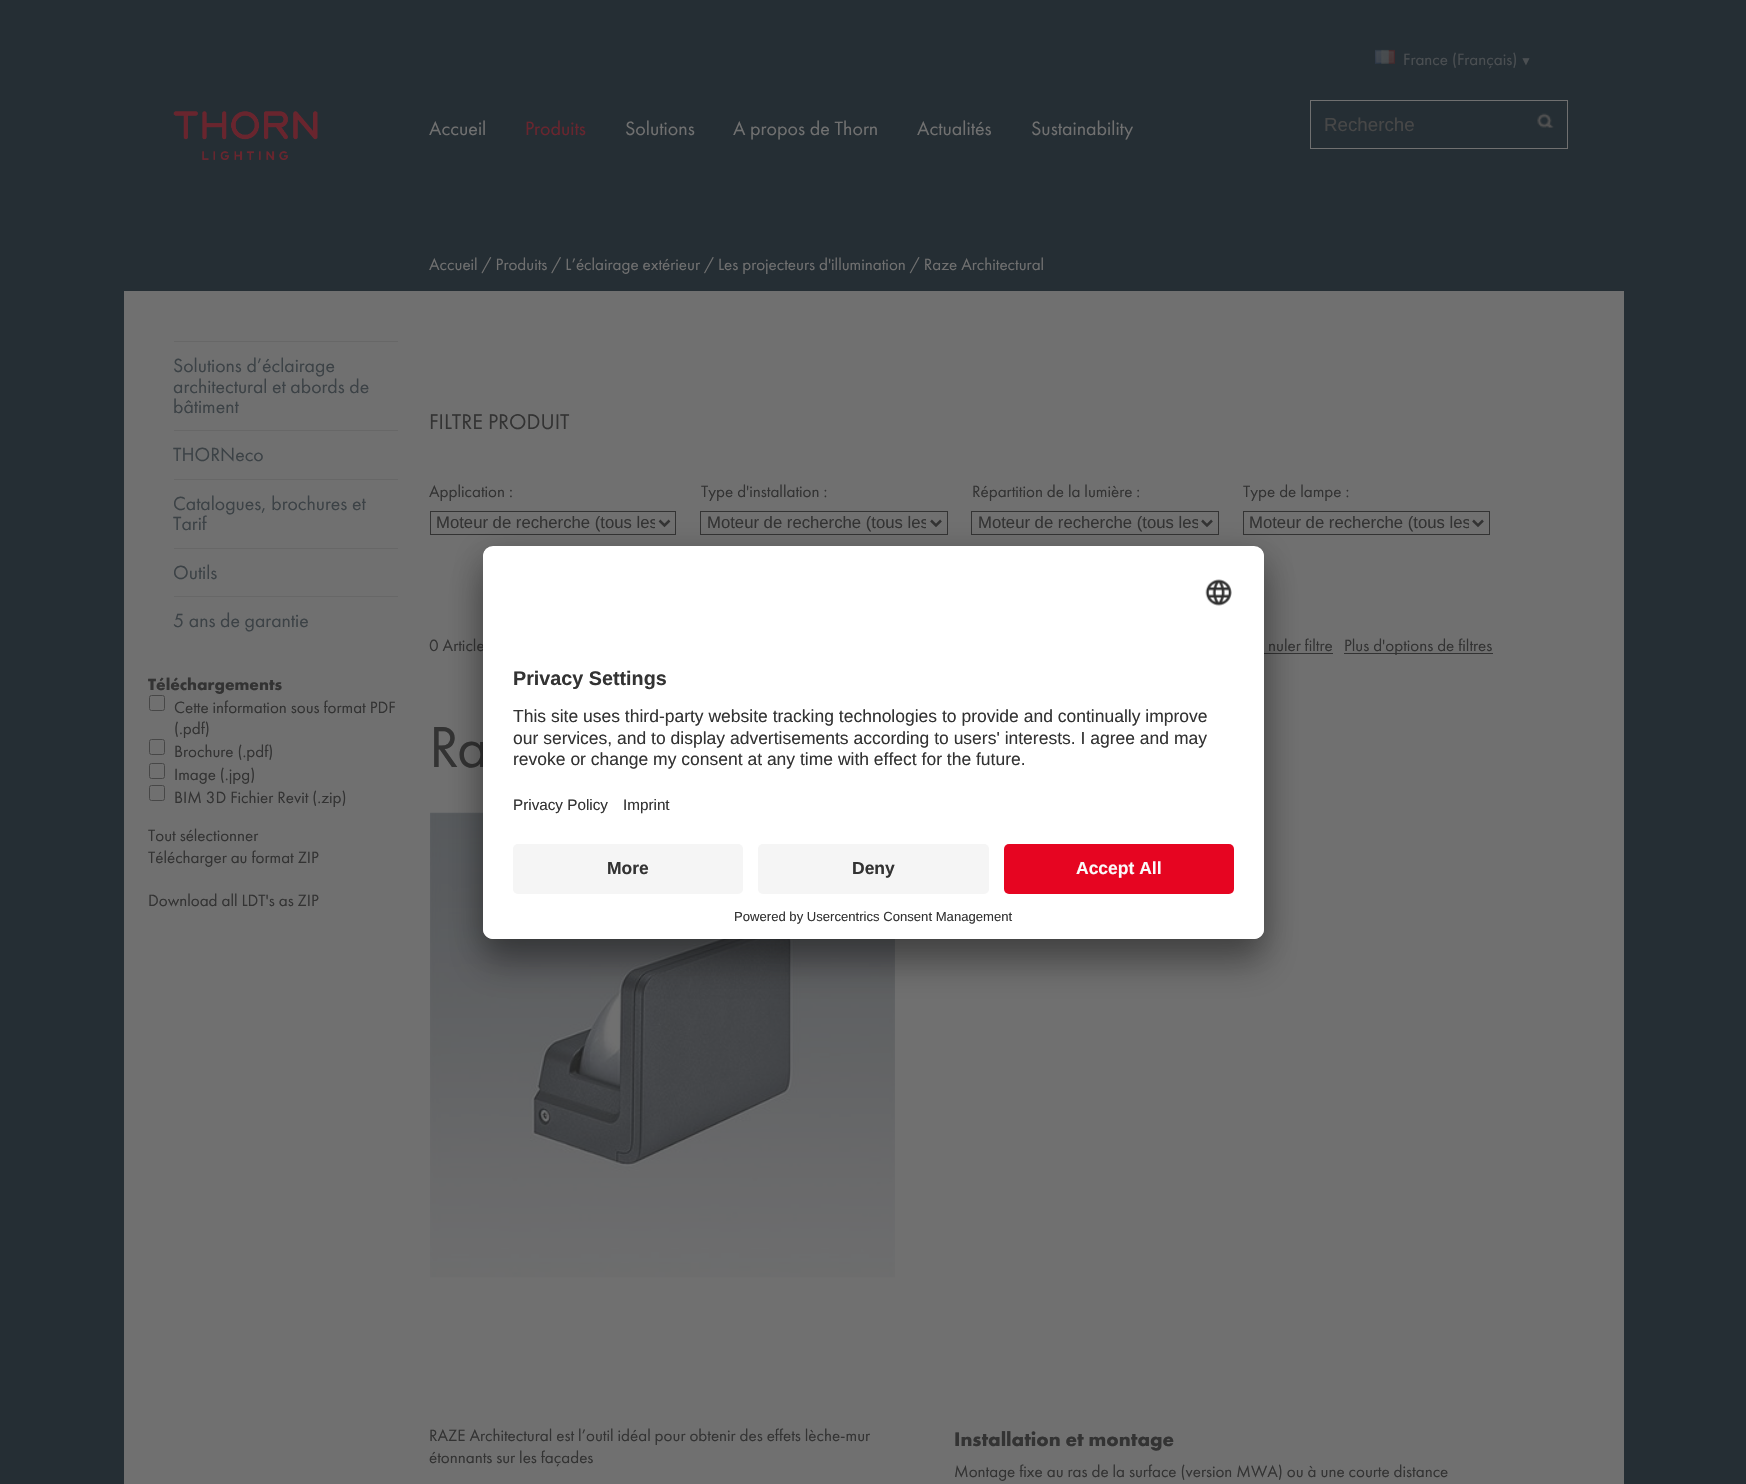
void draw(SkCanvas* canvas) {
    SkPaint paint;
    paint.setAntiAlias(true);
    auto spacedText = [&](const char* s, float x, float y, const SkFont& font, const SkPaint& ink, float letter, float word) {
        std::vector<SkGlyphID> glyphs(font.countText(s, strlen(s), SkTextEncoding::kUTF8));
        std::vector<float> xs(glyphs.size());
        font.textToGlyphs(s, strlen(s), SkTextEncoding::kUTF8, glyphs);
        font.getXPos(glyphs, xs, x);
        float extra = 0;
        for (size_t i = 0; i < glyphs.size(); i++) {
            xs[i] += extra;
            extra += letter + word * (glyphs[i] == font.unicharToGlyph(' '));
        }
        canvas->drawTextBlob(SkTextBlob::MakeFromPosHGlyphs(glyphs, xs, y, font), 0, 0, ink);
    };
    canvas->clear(0xFF252E34);
    canvas->drawImageRect(SkImages::DeferredFromEncodedData(SkData::MakeFromFileName("img1.png")), SkRect::MakeXYWH(173, 111, 145, 49), SkSamplingOptions());
    SkFont font1(fontMgr->matchFamilyStyle("Futura PT", SkFontStyle::Normal()), 20);
    font1.setSubpixel(true);
    paint.setColor(0xFF707070);
    canvas->drawString("Accueil", 429, 135, font1, paint);
    paint.setColor(0xFF69252E);
    canvas->drawString("Produits", 525, 135, font1, paint);
    paint.setColor(0xFF707070);
    canvas->drawString("Solutions", 625, 135, font1, paint);
    canvas->drawString("A propos de Thorn", 733, 135, font1, paint);
    canvas->drawString("Actualités", 917, 135, font1, paint);
    canvas->drawString("Sustainability", 1031, 135, font1, paint);
    canvas->drawImageRect(SkImages::DeferredFromEncodedData(SkData::MakeFromFileName("img2.png")), SkRect::MakeXYWH(1375, 49, 20, 15), SkSamplingOptions());
    SkFont font2(fontMgr->matchFamilyStyle("Futura PT", SkFontStyle::Normal()), 17);
    font2.setSubpixel(true);
    paint.setColor(0xFF4B4F52);
    canvas->drawString("France (Français)", 1403, 65, font2, paint);
    SkFont font3(fontMgr->matchFamilyStyle("Liberation Serif", SkFontStyle::Normal()), 12);
    font3.setSubpixel(true);
    canvas->drawString("▼", 1520, 65, font3, paint);
    canvas->drawImageRect(SkImages::DeferredFromEncodedData(SkData::MakeFromFileName("img3.png")), SkRect::MakeXYWH(1537, 113, 17, 15), SkSamplingOptions());
    paint.setStyle(SkPaint::kStroke_Style);
    paint.setStrokeWidth(1);
    paint.setColor(0xFF707070);
    canvas->drawRect(SkRect::MakeXYWH(1310.5f, 100.5f, 257, 48), paint);
    SkFont font4(fontMgr->matchFamilyStyle("Liberation Sans", SkFontStyle::Normal()), 18.75f);
    font4.setSubpixel(true);
    paint.setStyle(SkPaint::kFill_Style);
    paint.setColor(0xFF474747);
    canvas->drawString("Recherche", 1324, 131, font4, paint);
    paint.setColor(0xFF707070);
    canvas->drawRect(SkRect::MakeXYWH(124, 291, 1500, 1193), paint);
    paint.setColor(0xFF676767);
    canvas->drawRect(SkRect::MakeXYWH(174, 341, 224, 1), paint);
    SkFont font5(fontMgr->matchFamilyStyle("Futura PT", SkFontStyle::Normal()), 19.75f);
    font5.setSubpixel(true);
    paint.setColor(0xFF3C4246);
    canvas->drawString("Solutions d’éclairage", 173, 372, font5, paint);
    canvas->drawString("architectural et abords de", 173, 393, font5, paint);
    canvas->drawString("bâtiment", 173, 413, font5, paint);
    paint.setColor(0xFF676767);
    canvas->drawRect(SkRect::MakeXYWH(174, 430, 224, 1), paint);
    paint.setColor(0xFF3C4246);
    canvas->drawString("THORNeco", 173, 461, font5, paint);
    paint.setColor(0xFF676767);
    canvas->drawRect(SkRect::MakeXYWH(174, 479, 224, 1), paint);
    paint.setColor(0xFF3C4246);
    canvas->drawString("Catalogues, brochures et", 173, 510, font5, paint);
    canvas->drawString("Tarif", 173, 530, font5, paint);
    paint.setColor(0xFF676767);
    canvas->drawRect(SkRect::MakeXYWH(174, 548, 224, 1), paint);
    paint.setColor(0xFF3C4246);
    canvas->drawString("Outils", 173, 579, font5, paint);
    paint.setColor(0xFF676767);
    canvas->drawRect(SkRect::MakeXYWH(174, 596, 224, 1), paint);
    paint.setColor(0xFF3C4246);
    canvas->drawString("5 ans de garantie", 173, 627, font5, paint);
    SkFont font6(fontMgr->matchFamilyStyle("Futura PT", SkFontStyle::Bold()), 17);
    font6.setSubpixel(true);
    paint.setColor(0xFF333333);
    canvas->drawString("Téléchargements", 148, 690, font6, paint);
    paint.setStyle(SkPaint::kStroke_Style);
    paint.setColor(0xFF474747);
    canvas->drawRoundRect(SkRect::MakeXYWH(149.5f, 695.5f, 15, 15), 2, 2, paint);
    paint.setStyle(SkPaint::kFill_Style);
    paint.setColor(0xFF333333);
    canvas->drawString("Cette information sous format PDF", 174, 713, font2, paint);
    canvas->drawString("(.pdf)", 174, 734, font2, paint);
    paint.setStyle(SkPaint::kStroke_Style);
    paint.setColor(0xFF474747);
    canvas->drawRoundRect(SkRect::MakeXYWH(149.5f, 739.5f, 15, 15), 2, 2, paint);
    paint.setStyle(SkPaint::kFill_Style);
    paint.setColor(0xFF333333);
    canvas->drawString("Brochure (.pdf)", 174, 757, font2, paint);
    paint.setStyle(SkPaint::kStroke_Style);
    paint.setColor(0xFF474747);
    canvas->drawRoundRect(SkRect::MakeXYWH(149.5f, 763.5f, 15, 15), 2, 2, paint);
    paint.setStyle(SkPaint::kFill_Style);
    paint.setColor(0xFF333333);
    canvas->drawString("Image (.jpg)", 174, 780, font2, paint);
    paint.setStyle(SkPaint::kStroke_Style);
    paint.setColor(0xFF474747);
    canvas->drawRoundRect(SkRect::MakeXYWH(149.5f, 785.5f, 15, 15), 2, 2, paint);
    paint.setStyle(SkPaint::kFill_Style);
    paint.setColor(0xFF333333);
    canvas->drawString("BIM 3D Fichier Revit (.zip)", 174, 803, font2, paint);
    canvas->drawString("Tout sélectionner", 148, 841, font2, paint);
    canvas->drawString("Télécharger au format ZIP", 148, 863, font2, paint);
    canvas->drawString("Download all LDT's as ZIP", 148, 906, font2, paint);
    paint.setColor(0xFF707070);
    canvas->drawString("Accueil / Produits / L’éclairage extérieur / Les projecteurs d'illumination / Raze Architectural", 429, 270, font2, paint);
    SkFont font7(fontMgr->matchFamilyStyle("Futura PT", SkFontStyle::Normal()), 22);
    font7.setSubpixel(true);
    paint.setColor(0xFF333333);
    canvas->drawString("FILTRE PRODUIT", 429, 429, font7, paint);
    canvas->drawString("Application :", 429, 497, font2, paint);
    paint.setStyle(SkPaint::kStroke_Style);
    canvas->drawRect(SkRect::MakeXYWH(430.5f, 511.5f, 245, 23), paint);
    paint.setStrokeWidth(2.5f);
    canvas->drawPath(SkPathBuilder().moveTo(659.5f, 520.5f).lineTo(664.5f, 525.5f).lineTo(669.5f, 520.5f).detach(), paint);
    canvas->save();
    canvas->clipRect(SkRect::MakeXYWH(436, 513, 219, 21));
    SkFont font8(fontMgr->matchFamilyStyle("Liberation Sans", SkFontStyle::Normal()), 16.7f);
    font8.setSubpixel(true);
    paint.setStyle(SkPaint::kFill_Style);
    canvas->drawString("Moteur de recherche (tous les", 436, 528, font8, paint);
    canvas->restore();
    canvas->drawString("Type d'installation :", 701, 497, font2, paint);
    paint.setStyle(SkPaint::kStroke_Style);
    paint.setStrokeWidth(1);
    canvas->drawRect(SkRect::MakeXYWH(700.5f, 511.5f, 247, 23), paint);
    paint.setStrokeWidth(2.5f);
    canvas->drawPath(SkPathBuilder().moveTo(931, 520.5f).lineTo(936, 525.5f).lineTo(941, 520.5f).detach(), paint);
    canvas->save();
    canvas->clipRect(SkRect::MakeXYWH(706, 513, 220, 21));
    paint.setStyle(SkPaint::kFill_Style);
    canvas->drawString("Moteur de recherche (tous les", 707, 528, font8, paint);
    canvas->restore();
    canvas->drawString("Répartition de la lumière :", 972, 497, font2, paint);
    paint.setStyle(SkPaint::kStroke_Style);
    paint.setStrokeWidth(1);
    canvas->drawRect(SkRect::MakeXYWH(971.5f, 511.5f, 247, 23), paint);
    paint.setStrokeWidth(2.5f);
    canvas->drawPath(SkPathBuilder().moveTo(1202, 520.5f).lineTo(1207, 525.5f).lineTo(1212, 520.5f).detach(), paint);
    canvas->save();
    canvas->clipRect(SkRect::MakeXYWH(978, 513, 220, 21));
    paint.setStyle(SkPaint::kFill_Style);
    canvas->drawString("Moteur de recherche (tous les", 978, 528, font8, paint);
    canvas->restore();
    canvas->drawString("Type de lampe :", 1243, 497, font2, paint);
    paint.setStyle(SkPaint::kStroke_Style);
    paint.setStrokeWidth(1);
    canvas->drawRect(SkRect::MakeXYWH(1243.5f, 511.5f, 246, 23), paint);
    paint.setStrokeWidth(2.5f);
    canvas->drawPath(SkPathBuilder().moveTo(1473, 520.5f).lineTo(1478, 525.5f).lineTo(1483, 520.5f).detach(), paint);
    canvas->save();
    canvas->clipRect(SkRect::MakeXYWH(1249, 513, 220, 21));
    paint.setStyle(SkPaint::kFill_Style);
    canvas->drawString("Moteur de recherche (tous les", 1249, 528, font8, paint);
    canvas->restore();
    canvas->drawString("0 Article", 429, 651, font2, paint);
    canvas->drawString("nuler filtre", 1268, 651, font2, paint);
    canvas->drawRect(SkRect::MakeXYWH(1264, 653, 69, 1), paint);
    canvas->drawRect(SkRect::MakeXYWH(1344, 653, 149, 1), paint);
    canvas->drawString("Plus d'options de filtres", 1344, 651, font2, paint);
    SkFont font9(fontMgr->matchFamilyStyle("Futura PT", SkFontStyle::Normal()), 60);
    font9.setSubpixel(true);
    spacedText("Ra", 429, 767, font9, paint, -2, 0);
    canvas->drawImageRect(SkImages::DeferredFromEncodedData(SkData::MakeFromFileName("img4.png")), SkRect::MakeXYWH(430, 812, 465, 466), SkSamplingOptions());
    canvas->drawString("RAZE Architectural est l’outil idéal pour obtenir des effets lèche-mur", 429, 1441, font2, paint);
    canvas->drawString("étonnants sur les façades", 429, 1463, font2, paint);
    SkFont font10(fontMgr->matchFamilyStyle("Futura PT", SkFontStyle::Bold()), 20.4f);
    font10.setSubpixel(true);
    canvas->drawString("Installation et montage", 954, 1446, font10, paint);
    canvas->drawString("Montage fixe au ras de la surface (version MWA) ou à une courte distance", 954, 1477, font2, paint);
    paint.setColor(0x4D000000);
    paint.setMaskFilter(SkMaskFilter::MakeBlur(kNormal_SkBlurStyle, 17.5f));
    canvas->drawRoundRect(SkRect::MakeXYWH(483, 571, 781, 393), 10, 10, paint);
    paint.setMaskFilter(nullptr);
    paint.setColor(0x38000000);
    paint.setMaskFilter(SkMaskFilter::MakeBlur(kNormal_SkBlurStyle, 16));
    canvas->drawRoundRect(SkRect::MakeXYWH(483, 553, 781, 392), 10, 10, paint);
    paint.setMaskFilter(nullptr);
    paint.setColor(0xFFFFFFFF);
    canvas->drawRoundRect(SkRect::MakeXYWH(483, 546, 781, 393), 10, 10, paint);
    canvas->save();
    canvas->clipPath(SkPathBuilder().moveTo(493, 546).lineTo(1254, 546).cubicTo(1259.5f, 546, 1264, 550.5f, 1264, 556).lineTo(1264, 929).cubicTo(1264, 934.5f, 1259.5f, 939, 1254, 939).lineTo(493, 939).cubicTo(487.5f, 939, 483, 934.5f, 483, 929).lineTo(483, 556).cubicTo(483, 550.5f, 487.5f, 546, 493, 546).close().detach(), true);
    canvas->clipPath(SkPathBuilder().moveTo(493, 546).lineTo(1254, 546).cubicTo(1259.5f, 546, 1264, 550.5f, 1264, 556).lineTo(1264, 834).lineTo(483, 834).lineTo(483, 556).cubicTo(483, 550.5f, 487.5f, 546, 493, 546).close().detach(), true);
    canvas->drawRect(SkRect::MakeXYWH(483, 548, 781, 286), paint);
    canvas->restore();
    canvas->drawImageRect(SkImages::DeferredFromEncodedData(SkData::MakeFromFileName("img5.png")), SkRect::MakeXYWH(1205, 579, 27, 27), SkSamplingOptions());
    SkFont font11(fontMgr->matchFamilyStyle("Liberation Sans", SkFontStyle::Bold()), 19.75f);
    font11.setSubpixel(true);
    paint.setColor(0xFF333333);
    canvas->drawString("Privacy Settings", 513, 685, font11, paint);
    SkFont font12(fontMgr->matchFamilyStyle("Liberation Sans", SkFontStyle::Normal()), 17.5f);
    font12.setSubpixel(true);
    canvas->drawString("This site uses third-party website tracking technologies to provide and continually improve", 513, 722, font12, paint);
    canvas->drawString("our services, and to display advertisements according to users' interests. I agree and may", 513, 744, font12, paint);
    canvas->drawString("revoke or change my consent at any time with effect for the future.", 513, 765, font12, paint);
    SkFont font13(fontMgr->matchFamilyStyle("Liberation Sans", SkFontStyle::Normal()), 15.25f);
    font13.setSubpixel(true);
    canvas->drawString("Privacy Policy", 513, 810, font13, paint);
    canvas->drawString("Imprint", 623, 810, font13, paint);
    paint.setColor(0xFFFFFFFF);
    canvas->drawPath(SkPathBuilder().moveTo(483, 834).lineTo(1264, 834).lineTo(1264, 929).cubicTo(1264, 934.5f, 1259.5f, 939, 1254, 939).lineTo(493, 939).cubicTo(487.5f, 939, 483, 934.5f, 483, 929).close().detach(), paint);
    paint.setColor(0xFFF5F5F5);
    canvas->drawRoundRect(SkRect::MakeXYWH(513, 844, 230, 50), 5, 5, paint);
    SkFont font14(fontMgr->matchFamilyStyle("Liberation Sans", SkFontStyle::Bold()), 17.5f);
    font14.setSubpixel(true);
    paint.setColor(0xFF333333);
    canvas->drawString("More", 607, 874, font14, paint);
    paint.setColor(0xFFF5F5F5);
    canvas->drawRoundRect(SkRect::MakeXYWH(758, 844, 231, 50), 5, 5, paint);
    paint.setColor(0xFF333333);
    canvas->drawString("Deny", 852, 874, font14, paint);
    paint.setColor(0xFFE60521);
    canvas->drawRoundRect(SkRect::MakeXYWH(1004, 844, 230, 50), 5, 5, paint);
    paint.setColor(0xFFFAFAFA);
    canvas->drawString("Accept All", 1076, 874, font14, paint);
    SkFont font15(fontMgr->matchFamilyStyle("Liberation Sans", SkFontStyle::Normal()), 13.1f);
    font15.setSubpixel(true);
    paint.setColor(0xFF333333);
    canvas->drawString("Powered by Usercentrics Consent Management", 734, 921, font15, paint);
}
